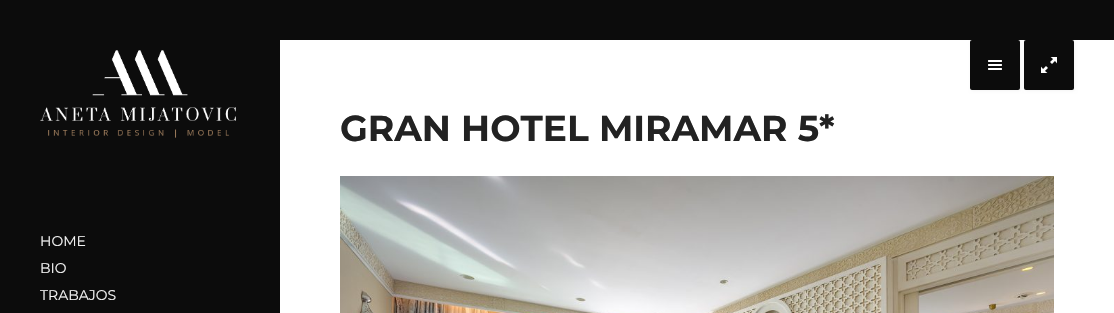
void draw(SkCanvas* canvas) {
    SkPaint paint;
    paint.setAntiAlias(true);
    canvas->clear(0xFF0C0C0C);
    paint.setColor(0xFFFFFFFF);
    canvas->drawRect(SkRect::MakeXYWH(280, 40, 834, 273), paint);
    paint.setColor(0x0A000000);
    paint.setMaskFilter(SkMaskFilter::MakeBlur(kNormal_SkBlurStyle, 1.5f));
    canvas->drawRoundRect(SkRect::MakeXYWH(971, 41, 50, 50), 2, 2, paint);
    paint.setMaskFilter(nullptr);
    paint.setColor(0xFF0C0C0C);
    canvas->drawRoundRect(SkRect::MakeXYWH(970, 40, 50, 50), 2, 2, paint);
    canvas->drawImageRect(SkImages::DeferredFromEncodedData(SkData::MakeFromFileName("img1.png")), SkRect::MakeXYWH(988, 60, 14, 10), SkSamplingOptions());
    paint.setColor(0x0A000000);
    paint.setMaskFilter(SkMaskFilter::MakeBlur(kNormal_SkBlurStyle, 1.5f));
    canvas->drawRoundRect(SkRect::MakeXYWH(1025, 41, 50, 50), 2, 2, paint);
    paint.setMaskFilter(nullptr);
    paint.setColor(0xFF0C0C0C);
    canvas->drawRoundRect(SkRect::MakeXYWH(1024, 40, 50, 50), 2, 2, paint);
    canvas->drawImageRect(SkImages::DeferredFromEncodedData(SkData::MakeFromFileName("img2.png")), SkRect::MakeXYWH(1041, 57, 16, 16), SkSamplingOptions());
    SkFont font1(fontMgr->matchFamilyStyle("Montserrat", SkFontStyle::Bold()), 36);
    font1.setSubpixel(true);
    paint.setColor(0xFF222222);
    canvas->drawString("GRAN HOTEL MIRAMAR 5*", 340, 141, font1, paint);
    canvas->drawImageRect(SkImages::DeferredFromEncodedData(SkData::MakeFromFileName("img3.png")), SkRect::MakeXYWH(340, 176, 714, 137), SkSamplingOptions());
    canvas->drawImageRect(SkImages::DeferredFromEncodedData(SkData::MakeFromFileName("img4.png")), SkRect::MakeXYWH(40, 50, 196, 88), SkSamplingOptions());
    SkFont font2(fontMgr->matchFamilyStyle("Montserrat", SkFontStyle::Normal()), 14);
    font2.setSubpixel(true);
    paint.setColor(0xFFF4F4F4);
    canvas->drawString("HOME", 40, 246, font2, paint);
    canvas->drawString("BIO", 40, 273, font2, paint);
    canvas->drawString("TRABAJOS", 40, 300, font2, paint);
}
